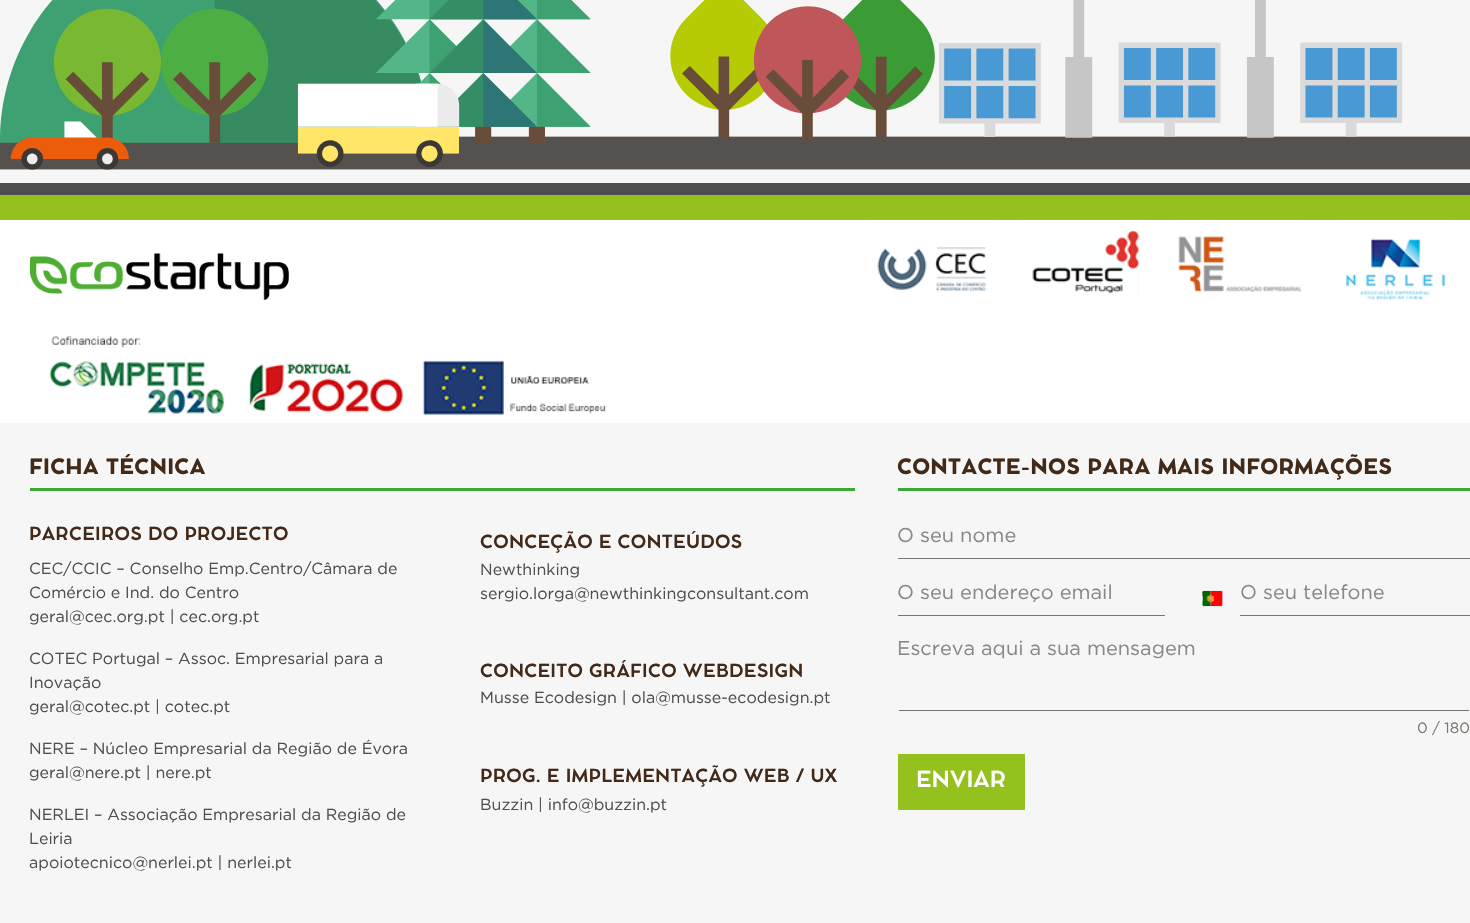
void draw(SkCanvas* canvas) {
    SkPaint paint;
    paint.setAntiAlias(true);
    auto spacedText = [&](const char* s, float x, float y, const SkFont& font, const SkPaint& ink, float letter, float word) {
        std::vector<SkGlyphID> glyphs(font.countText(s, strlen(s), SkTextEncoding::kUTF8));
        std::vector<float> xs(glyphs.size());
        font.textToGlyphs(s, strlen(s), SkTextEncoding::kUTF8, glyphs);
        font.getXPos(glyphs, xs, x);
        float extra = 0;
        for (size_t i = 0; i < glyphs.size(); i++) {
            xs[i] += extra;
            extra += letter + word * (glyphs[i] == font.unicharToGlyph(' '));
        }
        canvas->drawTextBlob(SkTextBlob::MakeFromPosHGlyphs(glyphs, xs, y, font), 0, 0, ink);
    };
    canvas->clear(0xFFF6F6F6);
    canvas->drawImageRect(SkImages::DeferredFromEncodedData(SkData::MakeFromFileName("img1.png")), SkRect::MakeXYWH(0, 0, 1470, 170), SkSamplingOptions());
    paint.setColor(0xFF95C11F);
    canvas->drawRect(SkRect::MakeXYWH(0, 195, 1470, 25), paint);
    paint.setColor(0xFF4E4E4E);
    canvas->drawRect(SkRect::MakeXYWH(0, 183, 1470, 12), paint);
    paint.setColor(0xFFFFFFFF);
    canvas->drawRect(SkRect::MakeXYWH(0, 220, 1470, 203), paint);
    canvas->drawImageRect(SkImages::DeferredFromEncodedData(SkData::MakeFromFileName("img2.png")), SkRect::MakeXYWH(30, 253, 259, 47), SkSamplingOptions());
    canvas->drawImageRect(SkImages::DeferredFromEncodedData(SkData::MakeFromFileName("img3.png")), SkRect::MakeXYWH(865, 219, 135, 73), SkSamplingOptions());
    canvas->drawImageRect(SkImages::DeferredFromEncodedData(SkData::MakeFromFileName("img4.png")), SkRect::MakeXYWH(1018, 219, 135, 75), SkSamplingOptions());
    canvas->drawImageRect(SkImages::DeferredFromEncodedData(SkData::MakeFromFileName("img5.png")), SkRect::MakeXYWH(1172, 219, 135, 74), SkSamplingOptions());
    canvas->drawImageRect(SkImages::DeferredFromEncodedData(SkData::MakeFromFileName("img6.png")), SkRect::MakeXYWH(1334, 219, 120, 81), SkSamplingOptions());
    canvas->drawImageRect(SkImages::DeferredFromEncodedData(SkData::MakeFromFileName("img7.png")), SkRect::MakeXYWH(49, 335, 557, 80), SkSamplingOptions());
    paint.setColor(0xFF3AAA35);
    canvas->drawRect(SkRect::MakeXYWH(30, 488, 825, 3), paint);
    SkFont font1(fontMgr->matchFamilyStyle("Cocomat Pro", SkFontStyle(800, SkFontStyle::kNormal_Width, SkFontStyle::kUpright_Slant)), 21);
    font1.setSubpixel(true);
    paint.setColor(0xFF432918);
    spacedText("FICHA TÉCNICA", 29, 474, font1, paint, 0.25f, 0);
    SkFont font2(fontMgr->matchFamilyStyle("Cocomat Pro", SkFontStyle::Bold()), 18);
    font2.setSubpixel(true);
    spacedText("PARCEIROS DO PROJECTO", 29, 540, font2, paint, 0.25f, 0);
    SkFont font3(fontMgr->matchFamilyStyle("Gotham", SkFontStyle::Normal()), 16);
    font3.setSubpixel(true);
    paint.setColor(0xFF4E4E4E);
    canvas->drawString("CEC/CCIC – Conselho Emp.Centro/Câmara de", 29, 574, font3, paint);
    canvas->drawString("Comércio e Ind. do Centro", 29, 598, font3, paint);
    canvas->drawString("geral@cec.org.pt | cec.org.pt", 29, 622, font3, paint);
    canvas->drawString("COTEC Portugal – Assoc. Empresarial para a", 29, 664, font3, paint);
    canvas->drawString("Inovação", 29, 688, font3, paint);
    canvas->drawString("geral@cotec.pt | cotec.pt", 29, 712, font3, paint);
    canvas->drawString("NERE – Núcleo Empresarial da Região de Évora", 29, 754, font3, paint);
    canvas->drawString("geral@nere.pt | nere.pt", 29, 778, font3, paint);
    canvas->drawString("NERLEI – Associação Empresarial da Região de", 29, 820, font3, paint);
    canvas->drawString("Leiria", 29, 844, font3, paint);
    canvas->drawString("apoiotecnico@nerlei.pt | nerlei.pt", 29, 868, font3, paint);
    paint.setColor(0xFF432918);
    spacedText("CONCEÇÃO E CONTEÚDOS", 480, 548, font2, paint, 0.25f, 0);
    paint.setColor(0xFF4E4E4E);
    canvas->drawString("Newthinking", 480, 575, font3, paint);
    canvas->drawString("sergio.lorga@newthinkingconsultant.com", 480, 599, font3, paint);
    paint.setColor(0xFF432918);
    spacedText("CONCEITO GRÁFICO WEBDESIGN", 480, 677, font2, paint, 0.25f, 0);
    paint.setColor(0xFF4E4E4E);
    canvas->drawString("Musse Ecodesign | ola@musse-ecodesign.pt", 480, 703, font3, paint);
    paint.setColor(0xFF432918);
    spacedText("PROG. E IMPLEMENTAÇÃO WEB / UX", 480, 782, font2, paint, 0.25f, 0);
    paint.setColor(0xFF4E4E4E);
    canvas->drawString("Buzzin | info@buzzin.pt", 480, 810, font3, paint);
    paint.setColor(0xFF3AAA35);
    canvas->drawRect(SkRect::MakeXYWH(898, 488, 572, 3), paint);
    paint.setColor(0xFF432918);
    spacedText("CONTACTE-NOS PARA MAIS INFORMAÇÕES", 897, 474, font1, paint, 0.25f, 0);
    paint.setColor(0xFF777771);
    canvas->drawRect(SkRect::MakeXYWH(898, 558, 572, 1), paint);
    SkFont font4(fontMgr->matchFamilyStyle("Gotham", SkFontStyle::Normal()), 20);
    font4.setSubpixel(true);
    paint.setColor(0xFF888888);
    canvas->drawString("O seu nome", 897, 542, font4, paint);
    paint.setColor(0xFF777771);
    canvas->drawRect(SkRect::MakeXYWH(898, 615, 267, 1), paint);
    paint.setColor(0xFF888888);
    canvas->drawString("O seu endereço email", 897, 599, font4, paint);
    canvas->save();
    canvas->clipPath(SkPathBuilder(SkPathFillType::kEvenOdd).moveTo(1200, 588).lineTo(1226, 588).lineTo(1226, 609).lineTo(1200, 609).close().moveTo(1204, 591).lineTo(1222, 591).cubicTo(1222.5f, 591, 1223, 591.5f, 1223, 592).lineTo(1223, 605).cubicTo(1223, 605.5f, 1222.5f, 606, 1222, 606).lineTo(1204, 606).cubicTo(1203.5f, 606, 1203, 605.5f, 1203, 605).lineTo(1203, 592).cubicTo(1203, 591.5f, 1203.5f, 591, 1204, 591).close().detach(), true);
    paint.setMaskFilter(SkMaskFilter::MakeBlur(kNormal_SkBlurStyle, 0.5f));
    canvas->drawRoundRect(SkRect::MakeXYWH(1203, 591, 20, 15), 1, 1, paint);
    paint.setMaskFilter(nullptr);
    canvas->restore();
    canvas->drawImageRect(SkImages::DeferredFromEncodedData(SkData::MakeFromFileName("img8.png")), SkRect::MakeXYWH(1202, 591, 21, 15), SkSamplingOptions());
    paint.setColor(0xFF777771);
    canvas->drawRect(SkRect::MakeXYWH(1240, 615, 230, 1), paint);
    paint.setColor(0xFF888888);
    canvas->drawString("O seu telefone", 1240, 599, font4, paint);
    paint.setColor(0xFF777771);
    canvas->drawRect(SkRect::MakeXYWH(899, 710, 570, 1), paint);
    paint.setColor(0xFF888888);
    canvas->drawString("Escreva aqui a sua mensagem", 897, 655, font4, paint);
    SkFont font5(fontMgr->matchFamilyStyle("Gotham", SkFontStyle::Normal()), 15);
    font5.setSubpixel(true);
    paint.setColor(0xFF777771);
    canvas->drawString("0 / 180", 1417, 733, font5, paint);
    paint.setColor(0xFF95C11F);
    canvas->drawRect(SkRect::MakeXYWH(898, 754, 127, 56), paint);
    SkFont font6(fontMgr->matchFamilyStyle("Cocomat Pro", SkFontStyle::Bold()), 22);
    font6.setSubpixel(true);
    paint.setColor(0xFFFFFFFF);
    canvas->drawString("ENVIAR", 916, 787, font6, paint);
}
